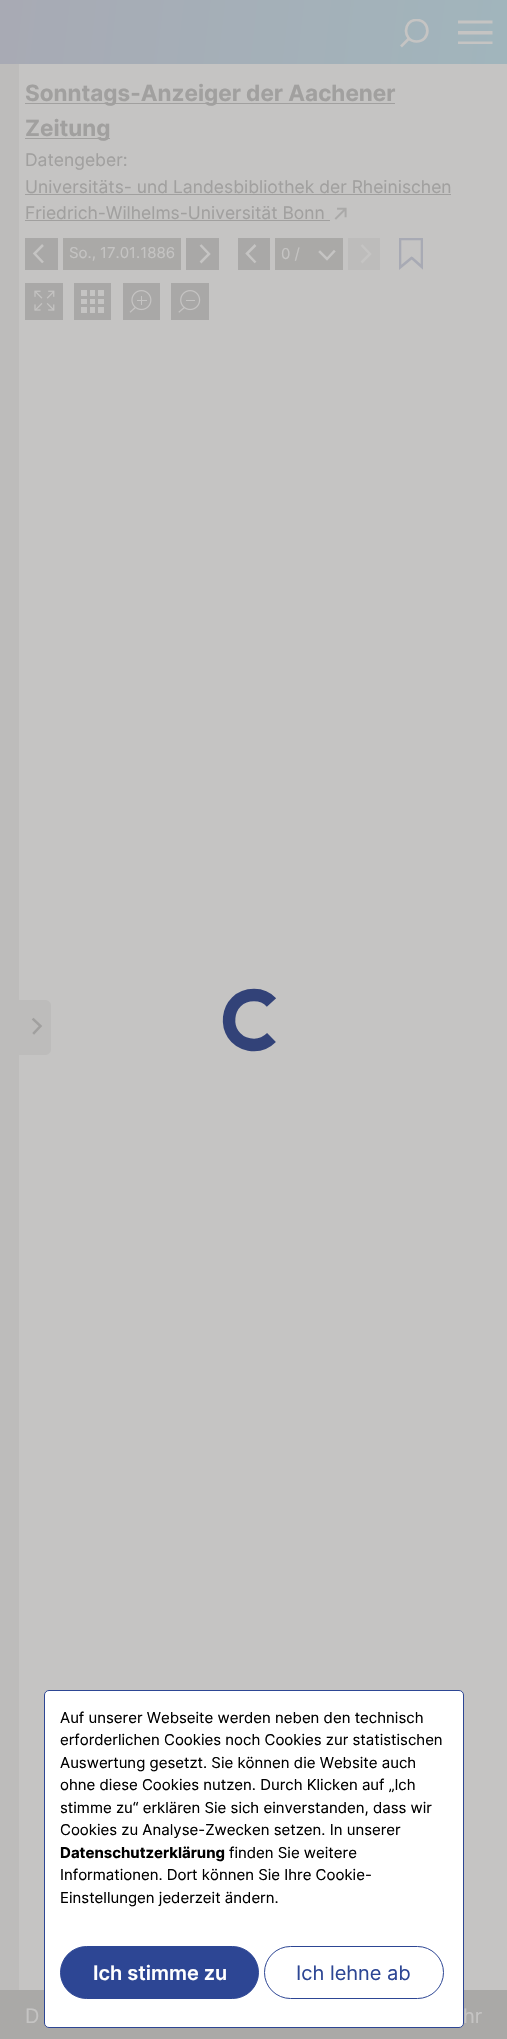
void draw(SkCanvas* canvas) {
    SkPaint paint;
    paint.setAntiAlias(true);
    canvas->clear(0xFFC5C4C3);
    {
        const SkColor colors[] = {0xFFA1B5BC, 0xFFA8AAB4};
        const float stops[] = {0, 1};
        const SkPoint ends[] = {{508, 62}, {-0.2f, 1.5f}};
        paint.setShader(SkGradientShader::MakeLinear(ends, colors, stops, 2, SkTileMode::kClamp));
        paint.setAlpha(255);
    }
    canvas->drawRect(SkRect::MakeXYWH(0, 0, 507, 64), paint);
    paint.setStyle(SkPaint::kStroke_Style);
    paint.setStrokeWidth(2.7f);
    paint.setShader(nullptr);
    paint.setColor(0xFFC5C4C3);
    canvas->drawPath(SkPathBuilder().moveTo(409, 38.5f).lineTo(401, 46.5f).detach(), paint);
    canvas->save();
    canvas->clipRect(SkRect::MakeXYWH(400, 19, 29, 29));
    canvas->drawPath(SkPathBuilder().moveTo(416.5f, 20).cubicTo(402.5f, 20, 402.5f, 41.5f, 416.5f, 41.5f).cubicTo(431, 41.5f, 431, 20, 416.5f, 20).close().detach(), paint);
    canvas->restore();
    canvas->save();
    canvas->clipRect(SkRect::MakeXYWH(458, 20, 35, 24));
    paint.setStyle(SkPaint::kFill_Style);
    canvas->drawPath(SkPathBuilder(SkPathFillType::kEvenOdd).moveTo(492.5f, 23.5f).lineTo(458, 23.5f).lineTo(458, 20.5f).lineTo(492.5f, 20.5f).close().moveTo(492.5f, 34.5f).lineTo(458, 34.5f).lineTo(458, 31).lineTo(492.5f, 31).close().moveTo(458, 45).lineTo(492.5f, 45).lineTo(492.5f, 41.5f).lineTo(458, 41.5f).close().detach(), paint);
    canvas->restore();
    paint.setColor(0xFFBDBCBB);
    canvas->drawRect(SkRect::MakeXYWH(0, 64, 19, 1926), paint);
    canvas->drawPath(SkPathBuilder().moveTo(19, 1000).lineTo(45, 1000).cubicTo(48.5f, 1000, 51, 1002.5f, 51, 1006).lineTo(51, 1049).cubicTo(51, 1052.5f, 48.5f, 1055, 45, 1055).lineTo(19, 1055).close().detach(), paint);
    paint.setStyle(SkPaint::kStroke_Style);
    paint.setStrokeWidth(2.5f);
    paint.setStrokeCap(SkPaint::kSquare_Cap);
    paint.setColor(0xFFA1A09F);
    canvas->drawPath(SkPathBuilder().moveTo(33.5f, 1019.5f).lineTo(40.5f, 1026).lineTo(34, 1033).detach(), paint);
    paint.setStyle(SkPaint::kFill_Style);
    canvas->drawRect(SkRect::MakeXYWH(25, 103, 370, 1), paint);
    SkFont font1(fontMgr->matchFamilyStyle("Inter", SkFontStyle::Bold()), 22.5f);
    font1.setSubpixel(true);
    canvas->drawString("Sonntags-Anzeiger der Aachener", 25, 101, font1, paint);
    canvas->drawRect(SkRect::MakeXYWH(25, 138, 85, 1), paint);
    canvas->drawString("Zeitung", 25, 136, font1, paint);
    SkFont font2(fontMgr->matchFamilyStyle("Inter", SkFontStyle::Normal()), 17.5f);
    font2.setSubpixel(true);
    canvas->drawString("Datengeber:", 25, 166, font2, paint);
    canvas->drawString("Universitäts- und Landesbibliothek der Rheinischen", 25, 193, font2, paint);
    canvas->drawRect(SkRect::MakeXYWH(25, 194, 426, 1), paint);
    canvas->drawString("Friedrich-Wilhelms-Universität Bonn", 25, 219, font2, paint);
    canvas->drawRect(SkRect::MakeXYWH(25, 220, 305, 1), paint);
    canvas->drawImageRect(SkImages::DeferredFromEncodedData(SkData::MakeFromFileName("img1.png")), SkRect::MakeXYWH(334, 207, 13, 13), SkSamplingOptions());
    paint.setColor(0xFFA9A8A7);
    canvas->drawRect(SkRect::MakeXYWH(25, 238, 33, 32), paint);
    paint.setStyle(SkPaint::kStroke_Style);
    paint.setStrokeCap(SkPaint::kButt_Cap);
    paint.setColor(0xFFC5C4C3);
    canvas->drawPath(SkPathBuilder().moveTo(43, 245).lineTo(34.5f, 253.5f).lineTo(43, 262.5f).detach(), paint);
    paint.setStyle(SkPaint::kFill_Style);
    paint.setColor(0xFFAAA9A7);
    canvas->drawRect(SkRect::MakeXYWH(63, 238, 118, 32), paint);
    SkFont font3(fontMgr->matchFamilyStyle("Inter", SkFontStyle::Normal()), 15);
    font3.setSubpixel(true);
    paint.setColor(0xFFC5C4C3);
    canvas->drawString("So., 17.01.1886", 69, 258, font3, paint);
    paint.setColor(0xFFA9A8A7);
    canvas->drawRect(SkRect::MakeXYWH(186, 238, 33, 32), paint);
    paint.setStyle(SkPaint::kStroke_Style);
    paint.setColor(0xFFC5C4C3);
    canvas->drawPath(SkPathBuilder().moveTo(200.5f, 262.5f).lineTo(209, 254).lineTo(200.5f, 245).detach(), paint);
    paint.setStyle(SkPaint::kFill_Style);
    paint.setColor(0xFFA9A8A7);
    canvas->drawRect(SkRect::MakeXYWH(238, 238, 32, 32), paint);
    paint.setStyle(SkPaint::kStroke_Style);
    paint.setColor(0xFFC5C4C3);
    canvas->drawPath(SkPathBuilder().moveTo(255.5f, 245).lineTo(247, 253.5f).lineTo(255.5f, 262.5f).detach(), paint);
    paint.setStyle(SkPaint::kFill_Style);
    paint.setColor(0xFFAAA9A7);
    canvas->drawRect(SkRect::MakeXYWH(275, 238, 68, 32), paint);
    paint.setColor(0xFFC5C4C3);
    canvas->drawString("0 /", 281, 259, font3, paint);
    paint.setStyle(SkPaint::kStroke_Style);
    paint.setStrokeCap(SkPaint::kSquare_Cap);
    canvas->drawPath(SkPathBuilder().moveTo(334, 251.5f).lineTo(327, 259).lineTo(320, 252).detach(), paint);
    paint.setStyle(SkPaint::kFill_Style);
    paint.setColor(0xFFBDBCBB);
    canvas->drawRect(SkRect::MakeXYWH(348, 238, 32, 32), paint);
    paint.setStyle(SkPaint::kStroke_Style);
    paint.setStrokeCap(SkPaint::kButt_Cap);
    paint.setColor(0xFFC5C4C3);
    canvas->drawPath(SkPathBuilder().moveTo(361.5f, 262.5f).lineTo(370, 254).lineTo(361.5f, 245).detach(), paint);
    canvas->save();
    canvas->clipRect(SkRect::MakeXYWH(399, 238, 24, 32));
    paint.setStrokeWidth(2.6f);
    paint.setColor(0xFFA8AAB4);
    canvas->drawPath(SkPathBuilder().moveTo(412.5f, 258.5f).lineTo(411.5f, 258).lineTo(400, 267.5f).lineTo(400, 239).lineTo(422, 239).lineTo(422, 267).close().detach(), paint);
    canvas->restore();
    canvas->drawImageRect(SkImages::DeferredFromEncodedData(SkData::MakeFromFileName("img2.png")), SkRect::MakeXYWH(25, 283, 38, 37), SkSamplingOptions());
    canvas->drawImageRect(SkImages::DeferredFromEncodedData(SkData::MakeFromFileName("img3.png")), SkRect::MakeXYWH(74, 283, 37, 37), SkSamplingOptions());
    canvas->drawImageRect(SkImages::DeferredFromEncodedData(SkData::MakeFromFileName("img4.png")), SkRect::MakeXYWH(123, 283, 37, 37), SkSamplingOptions());
    canvas->drawImageRect(SkImages::DeferredFromEncodedData(SkData::MakeFromFileName("img5.png")), SkRect::MakeXYWH(171, 283, 38, 37), SkSamplingOptions());
    paint.setStrokeWidth(12.5f);
    paint.setColor(0xFF324278);
    canvas->drawPath(SkPathBuilder().moveTo(271.5f, 1037.5f).cubicTo(265.5f, 1043.5f, 257, 1046, 249, 1044.5f).cubicTo(219.5f, 1038.5f, 224, 995, 254, 995).cubicTo(260.5f, 995, 267, 997.5f, 271.5f, 1002.5f).detach(), paint);
    paint.setStyle(SkPaint::kFill_Style);
    paint.setColor(0xFFAAA9A7);
    canvas->drawRect(SkRect::MakeXYWH(0, 1990, 507, 49), paint);
    SkFont font4(fontMgr->matchFamilyStyle("Inter", SkFontStyle::Normal()), 20);
    font4.setSubpixel(true);
    paint.setColor(0xFFC5C4C3);
    canvas->drawString("D", 25, 2023, font4, paint);
    canvas->drawString("hr", 463, 2023, font4, paint);
    paint.setColor(0xFFFFFFFF);
    canvas->drawRoundRect(SkRect::MakeXYWH(44.5f, 1690.5f, 419, 337), 4.5f, 4.5f, paint);
    paint.setStyle(SkPaint::kStroke_Style);
    paint.setStrokeWidth(1);
    paint.setColor(0xFF2D4694);
    canvas->drawRoundRect(SkRect::MakeXYWH(44.5f, 1690.5f, 419, 337), 4.5f, 4.5f, paint);
    paint.setStyle(SkPaint::kFill_Style);
    paint.setColor(0xFF000000);
    canvas->drawString("Auf unserer Webseite werden neben den technisch", 60, 1723, font3, paint);
    canvas->drawString("erforderlichen Cookies noch Cookies zur statistischen", 60, 1745, font3, paint);
    canvas->drawString("Auswertung gesetzt. Sie können die Website auch", 60, 1768, font3, paint);
    canvas->drawString("ohne diese Cookies nutzen. Durch Klicken auf „Ich", 60, 1790, font3, paint);
    canvas->drawString("stimme zu“ erklären Sie sich einverstanden, dass wir", 60, 1813, font3, paint);
    canvas->drawString("Cookies zu Analyse-Zwecken setzen. In unserer", 60, 1835, font3, paint);
    SkFont font5(fontMgr->matchFamilyStyle("Inter", SkFontStyle::Bold()), 15);
    font5.setSubpixel(true);
    canvas->drawString("Datenschutzerklärung", 60, 1858, font5, paint);
    canvas->drawString("finden Sie weitere", 229, 1858, font3, paint);
    canvas->drawString("Informationen. Dort können Sie Ihre Cookie-", 60, 1880, font3, paint);
    canvas->drawString("Einstellungen jederzeit ändern.", 60, 1903, font3, paint);
    paint.setColor(0xFF2D4694);
    canvas->drawRoundRect(SkRect::MakeXYWH(60.5f, 1946.5f, 198, 52), 26, 26, paint);
    paint.setStyle(SkPaint::kStroke_Style);
    canvas->drawRoundRect(SkRect::MakeXYWH(60.5f, 1946.5f, 198, 52), 26, 26, paint);
    SkFont font6(fontMgr->matchFamilyStyle("Inter", SkFontStyle(600, SkFontStyle::kNormal_Width, SkFontStyle::kUpright_Slant)), 20);
    font6.setSubpixel(true);
    paint.setStyle(SkPaint::kFill_Style);
    paint.setColor(0xFFFFFFFF);
    canvas->drawString("Ich stimme zu", 93, 1980, font6, paint);
    paint.setStyle(SkPaint::kStroke_Style);
    paint.setColor(0xFF2D4694);
    canvas->drawRoundRect(SkRect::MakeXYWH(264.5f, 1946.5f, 179, 52), 26, 26, paint);
    paint.setStyle(SkPaint::kFill_Style);
    canvas->drawString("Ich lehne ab", 296, 1980, font4, paint);
}
